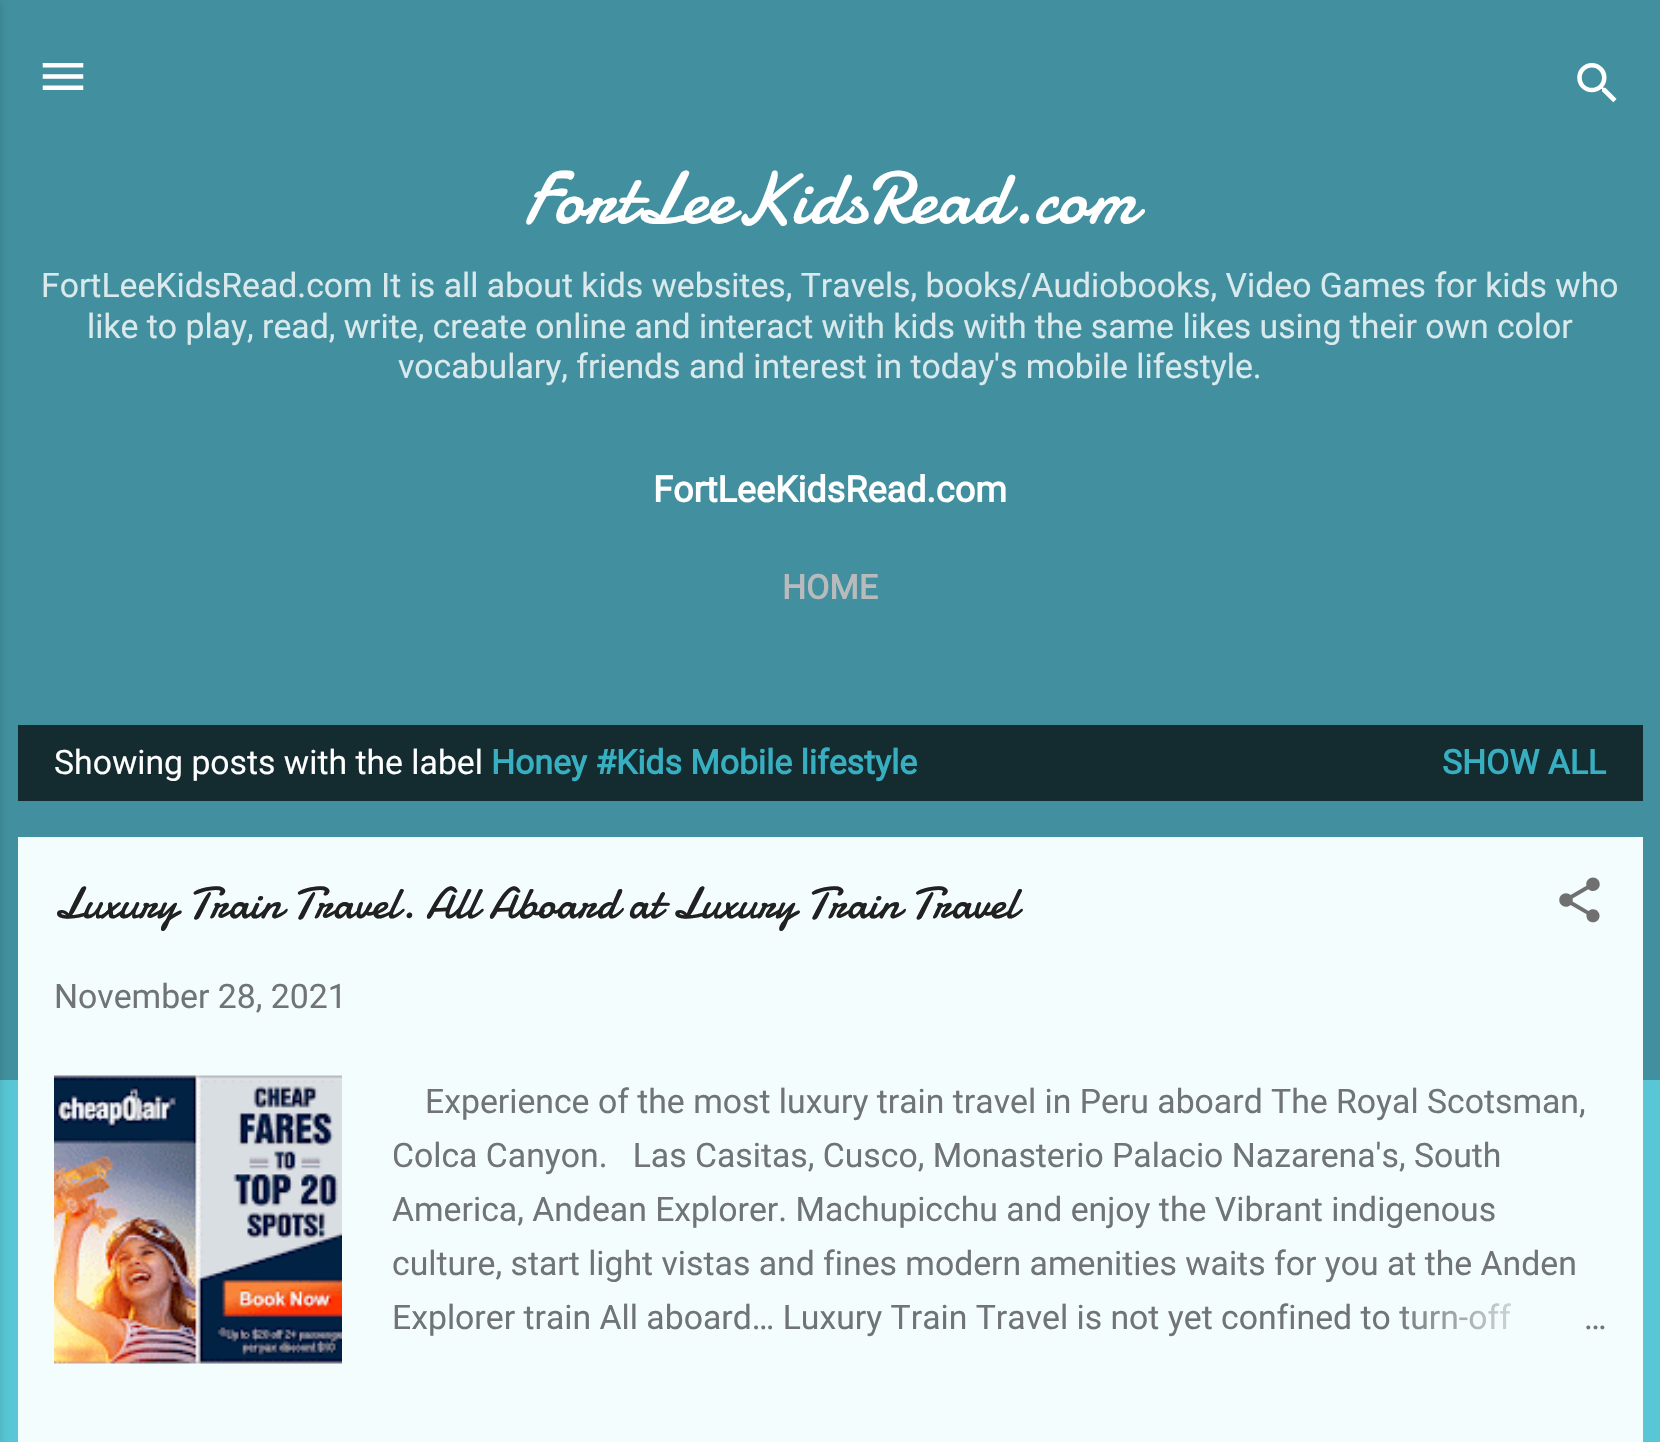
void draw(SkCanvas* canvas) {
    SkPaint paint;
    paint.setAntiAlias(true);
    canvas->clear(0xFF58C6D5);
    paint.setColor(0xFF42909F);
    canvas->drawRect(SkRect::MakeXYWH(0, 0, 1660, 1080), paint);
    paint.setColor(0x1A000000);
    paint.setMaskFilter(SkMaskFilter::MakeBlur(kNormal_SkBlurStyle, 3.5f));
    canvas->drawRect(SkRect::MakeXYWH(-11, 2, 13, 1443), paint);
    paint.setMaskFilter(nullptr);
    canvas->drawImageRect(SkImages::DeferredFromEncodedData(SkData::MakeFromFileName("img1.png")), SkRect::MakeXYWH(42, 63, 42, 27), SkSamplingOptions());
    canvas->drawImageRect(SkImages::DeferredFromEncodedData(SkData::MakeFromFileName("img2.png")), SkRect::MakeXYWH(1577, 63, 40, 40), SkSamplingOptions());
    SkFont font1(fontMgr->matchFamilyStyle("Damion", SkFontStyle::Normal()), 74.5f);
    font1.setSubpixel(true);
    paint.setColor(0xFFFFFFFF);
    canvas->drawString("FortLeeKidsRead.com", 524, 223, font1, paint);
    SkFont font2(fontMgr->matchFamilyStyle("Roboto", SkFontStyle::Normal()), 33.75f);
    font2.setSubpixel(true);
    paint.setColor(0xFFD9E9EC);
    canvas->drawString("FortLeeKidsRead.com It is all about kids websites, Travels, books/Audiobooks, Video Games for kids who", 41, 297, font2, paint);
    canvas->drawString("like to play, read, write, create online and interact with kids with the same likes using their own color", 87, 338, font2, paint);
    canvas->drawString("vocabulary, friends and interest in today's mobile lifestyle.", 398, 378, font2, paint);
    SkFont font3(fontMgr->matchFamilyStyle("Roboto", SkFontStyle::Bold()), 36);
    font3.setSubpixel(true);
    paint.setColor(0xFFFFFFFF);
    canvas->drawString("FortLeeKidsRead.com", 653, 502, font3, paint);
    SkFont font4(fontMgr->matchFamilyStyle("Roboto", SkFontStyle::Bold()), 33.75f);
    font4.setSubpixel(true);
    paint.setColor(0xFFB8BABB);
    canvas->drawString("HOME", 782, 599, font4, paint);
    paint.setColor(0xFF142B30);
    canvas->drawRect(SkRect::MakeXYWH(18, 725, 1625, 76), paint);
    paint.setColor(0xFFFFFFFF);
    canvas->drawString("Showing posts with the label", 54, 774, font2, paint);
    paint.setColor(0xFF37AFC0);
    canvas->drawString("Honey #Kids Mobile lifestyle", 491, 774, font4, paint);
    canvas->drawString("SHOW ALL", 1442, 774, font4, paint);
    paint.setColor(0xFFF3FDFE);
    canvas->drawRect(SkRect::MakeXYWH(18, 837, 1625, 605), paint);
    SkFont font5(fontMgr->matchFamilyStyle("Damion", SkFontStyle::Normal()), 45);
    font5.setSubpixel(true);
    paint.setColor(0xFF212121);
    canvas->drawString("Luxury Train Travel. All Aboard at Luxury Train Travel", 54, 918, font5, paint);
    canvas->drawImageRect(SkImages::DeferredFromEncodedData(SkData::MakeFromFileName("img3.png")), SkRect::MakeXYWH(1559, 877, 41, 46), SkSamplingOptions());
    paint.setColor(0xFF707475);
    canvas->drawString("November 28, 2021", 54, 1008, font2, paint);
    canvas->drawImageRect(SkImages::DeferredFromEncodedData(SkData::MakeFromFileName("img4.png")), SkRect::MakeXYWH(54, 1075, 288, 289), SkSamplingOptions());
    canvas->drawString("Experience of the most luxury train travel in Peru aboard The Royal Scotsman,", 425, 1113, font2, paint);
    canvas->drawString("Colca Canyon.   Las Casitas, Cusco, Monasterio Palacio Nazarena's, South", 392, 1167, font2, paint);
    canvas->drawString("America, Andean Explorer. Machupicchu and enjoy the Vibrant indigenous", 392, 1221, font2, paint);
    canvas->drawString("culture, start light vistas and fines modern amenities waits for you at the Anden", 392, 1275, font2, paint);
    canvas->drawString("Explorer train All aboard… Luxury Train Travel is not yet confined to turn-off", 392, 1329, font2, paint);
    {
        const SkColor colors[] = {0xFFF3FDFE, 0xFFF3FDFE, 0x00F3FDFE};
        const float stops[] = {0, 0.2f, 1};
        const SkPoint ends[] = {{1607, 1319}, {1391, 1319}};
        paint.setShader(SkGradientShader::MakeLinear(ends, colors, stops, 3, SkTileMode::kClamp));
        paint.setAlpha(255);
    }
    canvas->drawRect(SkRect::MakeXYWH(1399, 1303, 112, 27), paint);
    paint.setShader(nullptr);
    paint.setColor(0xFF707475);
    canvas->drawString("…", 1584, 1329, font2, paint);
}
